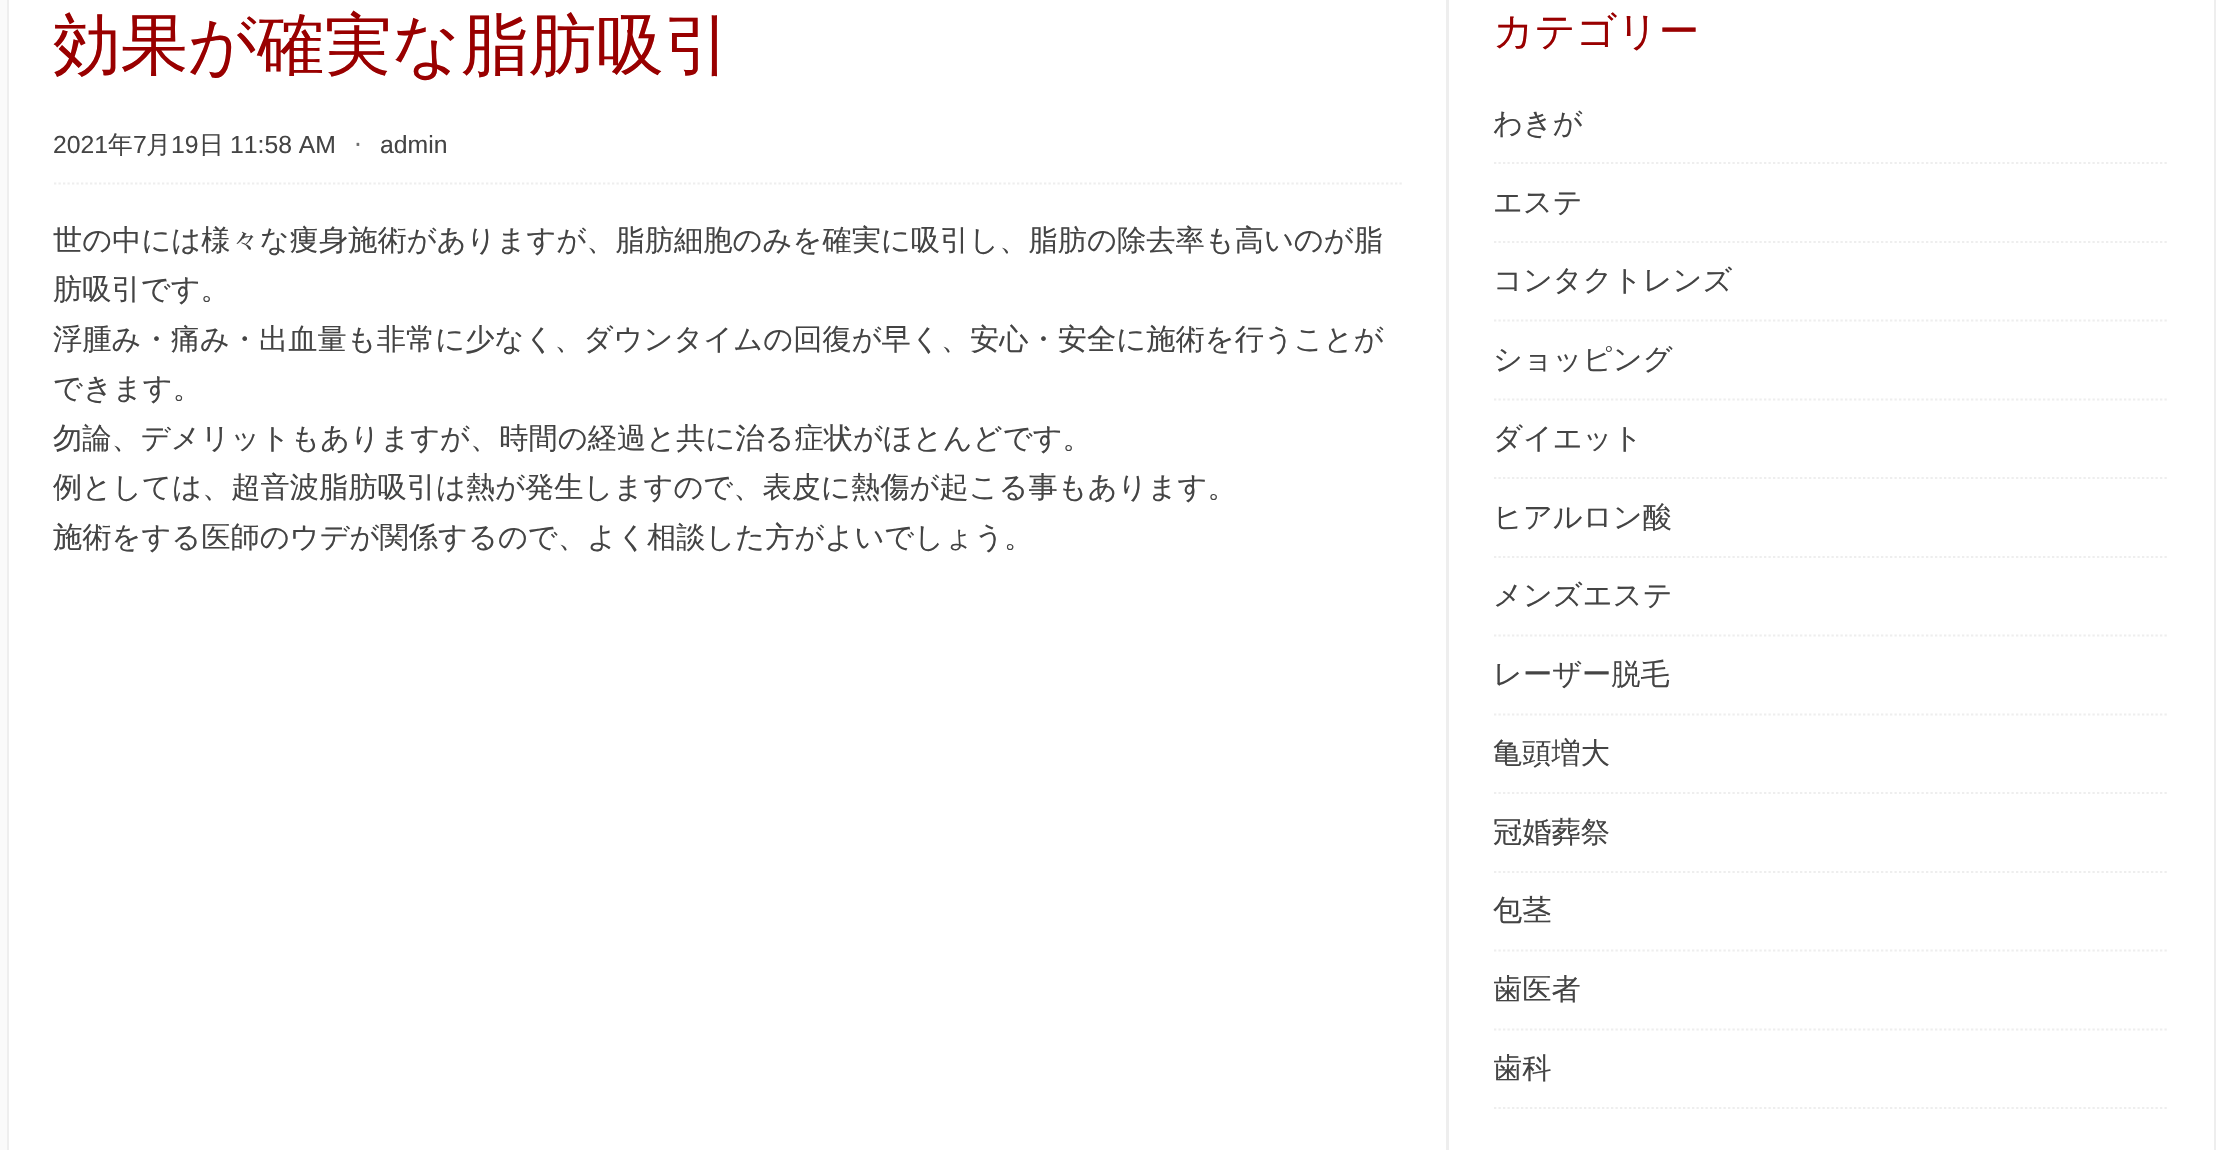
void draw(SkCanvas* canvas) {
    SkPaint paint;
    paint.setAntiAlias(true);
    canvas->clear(0xFFFAFAFA);
    paint.setColor(0xFFFFFFFF);
    canvas->drawRect(SkRect::MakeXYWH(8, -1, 2207, 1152), paint);
    paint.setStyle(SkPaint::kStroke_Style);
    paint.setStrokeWidth(2);
    paint.setColor(0xFFEEEEEE);
    canvas->drawRect(SkRect::MakeXYWH(8, -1, 2207, 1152), paint);
    paint.setStyle(SkPaint::kFill_Style);
    canvas->drawRect(SkRect::MakeXYWH(1446, 0, 3, 1150), paint);
    SkFont font1(fontMgr->matchFamilyStyle("WenQuanYi Zen Hei", SkFontStyle(500, SkFontStyle::kNormal_Width, SkFontStyle::kUpright_Slant)), 67.5f);
    font1.setSubpixel(true);
    paint.setColor(0xFF990000);
    canvas->drawString("効果が確実な脂肪吸引", 53, 68, font1, paint);
    paint.setStyle(SkPaint::kStroke_Style);
    paint.setStrokeWidth(2.2f);
    paint.setColor(0xFFEEEEEE);
    paint.setPathEffect(SkDashPathEffect::Make({{2.25f, 2.25f}}, 0));
    canvas->drawPath(SkPathBuilder().moveTo(54, 183.5f).lineTo(1404, 183.5f).detach(), paint);
    paint.setPathEffect(nullptr);
    SkFont font2(fontMgr->matchFamilyStyle("Liberation Sans", SkFontStyle::Normal()), 24.75f);
    font2.setSubpixel(true);
    paint.setStyle(SkPaint::kFill_Style);
    paint.setColor(0xFF444444);
    canvas->drawString("2021", 53, 153, font2, paint);
    SkFont font3(fontMgr->matchFamilyStyle("WenQuanYi Zen Hei", SkFontStyle(500, SkFontStyle::kNormal_Width, SkFontStyle::kUpright_Slant)), 24.75f);
    font3.setSubpixel(true);
    canvas->drawString("年", 108, 153, font3, paint);
    canvas->drawString("7", 133, 153, font2, paint);
    canvas->drawString("月", 146, 153, font3, paint);
    canvas->drawString("19", 171, 153, font2, paint);
    canvas->drawString("日", 199, 153, font3, paint);
    canvas->drawString("11:58 AM", 230, 153, font2, paint);
    SkFont font4(fontMgr->matchFamilyStyle("DejaVu Sans", SkFontStyle::Normal()), 24.75f);
    font4.setSubpixel(true);
    paint.setColor(0xFF707070);
    canvas->drawString("⋅", 354, 153, font4, paint);
    paint.setColor(0xFF444444);
    canvas->drawString("admin", 380, 153, font2, paint);
    SkFont font5(fontMgr->matchFamilyStyle("WenQuanYi Zen Hei", SkFontStyle(500, SkFontStyle::kNormal_Width, SkFontStyle::kUpright_Slant)), 29.25f);
    font5.setSubpixel(true);
    canvas->drawString("世の中には様々な痩身施術がありますが、脂肪細胞のみを確実に吸引し、脂肪の除去率も高いのが脂", 53, 250, font5, paint);
    canvas->drawString("肪吸引です。", 53, 299, font5, paint);
    canvas->drawString("浮腫み・痛み・出血量も非常に少なく、ダウンタイムの回復が早く、安心・安全に施術を行うことが", 53, 349, font5, paint);
    canvas->drawString("できます。", 53, 398, font5, paint);
    canvas->drawString("勿論、デメリットもありますが、時間の経過と共に治る症状がほとんどです。", 53, 448, font5, paint);
    canvas->drawString("例としては、超音波脂肪吸引は熱が発生しますので、表皮に熱傷が起こる事もあります。", 53, 497, font5, paint);
    canvas->drawString("施術をする医師のウデが関係するので、よく相談した方がよいでしょう。", 53, 547, font5, paint);
    SkFont font6(fontMgr->matchFamilyStyle("WenQuanYi Zen Hei", SkFontStyle(500, SkFontStyle::kNormal_Width, SkFontStyle::kUpright_Slant)), 40.5f);
    font6.setSubpixel(true);
    paint.setColor(0xFF990000);
    canvas->drawString("カテゴリー", 1493, 45, font6, paint);
    paint.setStyle(SkPaint::kStroke_Style);
    paint.setColor(0xFFEEEEEE);
    paint.setPathEffect(SkDashPathEffect::Make({{2.25f, 2.25f}}, 0));
    canvas->drawPath(SkPathBuilder().moveTo(1494, 163).lineTo(2169, 163).detach(), paint);
    paint.setPathEffect(nullptr);
    paint.setStyle(SkPaint::kFill_Style);
    paint.setColor(0xFF444444);
    canvas->drawString("わきが", 1493, 133, font5, paint);
    paint.setStyle(SkPaint::kStroke_Style);
    paint.setColor(0xFFEEEEEE);
    paint.setPathEffect(SkDashPathEffect::Make({{2.25f, 2.25f}}, 0));
    canvas->drawPath(SkPathBuilder().moveTo(1494, 242).lineTo(2169, 242).detach(), paint);
    paint.setPathEffect(nullptr);
    paint.setStyle(SkPaint::kFill_Style);
    paint.setColor(0xFF444444);
    canvas->drawString("エステ", 1493, 212, font5, paint);
    paint.setStyle(SkPaint::kStroke_Style);
    paint.setColor(0xFFEEEEEE);
    paint.setPathEffect(SkDashPathEffect::Make({{2.25f, 2.25f}}, 0));
    canvas->drawPath(SkPathBuilder().moveTo(1494, 320.5f).lineTo(2169, 320.5f).detach(), paint);
    paint.setPathEffect(nullptr);
    paint.setStyle(SkPaint::kFill_Style);
    paint.setColor(0xFF444444);
    canvas->drawString("コンタクトレンズ", 1493, 290, font5, paint);
    paint.setStyle(SkPaint::kStroke_Style);
    paint.setColor(0xFFEEEEEE);
    paint.setPathEffect(SkDashPathEffect::Make({{2.25f, 2.25f}}, 0));
    canvas->drawPath(SkPathBuilder().moveTo(1494, 399.5f).lineTo(2169, 399.5f).detach(), paint);
    paint.setPathEffect(nullptr);
    paint.setStyle(SkPaint::kFill_Style);
    paint.setColor(0xFF444444);
    canvas->drawString("ショッピング", 1493, 369, font5, paint);
    paint.setStyle(SkPaint::kStroke_Style);
    paint.setColor(0xFFEEEEEE);
    paint.setPathEffect(SkDashPathEffect::Make({{2.25f, 2.25f}}, 0));
    canvas->drawPath(SkPathBuilder().moveTo(1494, 478).lineTo(2169, 478).detach(), paint);
    paint.setPathEffect(nullptr);
    paint.setStyle(SkPaint::kFill_Style);
    paint.setColor(0xFF444444);
    canvas->drawString("ダイエット", 1493, 448, font5, paint);
    paint.setStyle(SkPaint::kStroke_Style);
    paint.setColor(0xFFEEEEEE);
    paint.setPathEffect(SkDashPathEffect::Make({{2.25f, 2.25f}}, 0));
    canvas->drawPath(SkPathBuilder().moveTo(1494, 557).lineTo(2169, 557).detach(), paint);
    paint.setPathEffect(nullptr);
    paint.setStyle(SkPaint::kFill_Style);
    paint.setColor(0xFF444444);
    canvas->drawString("ヒアルロン酸", 1493, 527, font5, paint);
    paint.setStyle(SkPaint::kStroke_Style);
    paint.setColor(0xFFEEEEEE);
    paint.setPathEffect(SkDashPathEffect::Make({{2.25f, 2.25f}}, 0));
    canvas->drawPath(SkPathBuilder().moveTo(1494, 635.5f).lineTo(2169, 635.5f).detach(), paint);
    paint.setPathEffect(nullptr);
    paint.setStyle(SkPaint::kFill_Style);
    paint.setColor(0xFF444444);
    canvas->drawString("メンズエステ", 1493, 605, font5, paint);
    paint.setStyle(SkPaint::kStroke_Style);
    paint.setColor(0xFFEEEEEE);
    paint.setPathEffect(SkDashPathEffect::Make({{2.25f, 2.25f}}, 0));
    canvas->drawPath(SkPathBuilder().moveTo(1494, 714.5f).lineTo(2169, 714.5f).detach(), paint);
    paint.setPathEffect(nullptr);
    paint.setStyle(SkPaint::kFill_Style);
    paint.setColor(0xFF444444);
    canvas->drawString("レーザー脱毛", 1493, 684, font5, paint);
    paint.setStyle(SkPaint::kStroke_Style);
    paint.setColor(0xFFEEEEEE);
    paint.setPathEffect(SkDashPathEffect::Make({{2.25f, 2.25f}}, 0));
    canvas->drawPath(SkPathBuilder().moveTo(1494, 793).lineTo(2169, 793).detach(), paint);
    paint.setPathEffect(nullptr);
    paint.setStyle(SkPaint::kFill_Style);
    paint.setColor(0xFF444444);
    canvas->drawString("亀頭増大", 1493, 763, font5, paint);
    paint.setStyle(SkPaint::kStroke_Style);
    paint.setColor(0xFFEEEEEE);
    paint.setPathEffect(SkDashPathEffect::Make({{2.25f, 2.25f}}, 0));
    canvas->drawPath(SkPathBuilder().moveTo(1494, 872).lineTo(2169, 872).detach(), paint);
    paint.setPathEffect(nullptr);
    paint.setStyle(SkPaint::kFill_Style);
    paint.setColor(0xFF444444);
    canvas->drawString("冠婚葬祭", 1493, 842, font5, paint);
    paint.setStyle(SkPaint::kStroke_Style);
    paint.setColor(0xFFEEEEEE);
    paint.setPathEffect(SkDashPathEffect::Make({{2.25f, 2.25f}}, 0));
    canvas->drawPath(SkPathBuilder().moveTo(1494, 950.5f).lineTo(2169, 950.5f).detach(), paint);
    paint.setPathEffect(nullptr);
    paint.setStyle(SkPaint::kFill_Style);
    paint.setColor(0xFF444444);
    canvas->drawString("包茎", 1493, 920, font5, paint);
    paint.setStyle(SkPaint::kStroke_Style);
    paint.setColor(0xFFEEEEEE);
    paint.setPathEffect(SkDashPathEffect::Make({{2.25f, 2.25f}}, 0));
    canvas->drawPath(SkPathBuilder().moveTo(1494, 1029.5f).lineTo(2169, 1029.5f).detach(), paint);
    paint.setPathEffect(nullptr);
    canvas->save();
    canvas->clipRect(SkRect::MakeXYWH(1494, 5, 675, 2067));
    paint.setStyle(SkPaint::kFill_Style);
    paint.setColor(0xFF444444);
    canvas->drawString("歯医者", 1493, 999, font5, paint);
    canvas->restore();
    paint.setStyle(SkPaint::kStroke_Style);
    paint.setColor(0xFFEEEEEE);
    paint.setPathEffect(SkDashPathEffect::Make({{2.25f, 2.25f}}, 0));
    canvas->drawPath(SkPathBuilder().moveTo(1494, 1108).lineTo(2169, 1108).detach(), paint);
    paint.setPathEffect(nullptr);
    canvas->save();
    canvas->clipRect(SkRect::MakeXYWH(1494, 5, 675, 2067));
    paint.setStyle(SkPaint::kFill_Style);
    paint.setColor(0xFF444444);
    canvas->drawString("歯科", 1493, 1078, font5, paint);
    canvas->restore();
}
